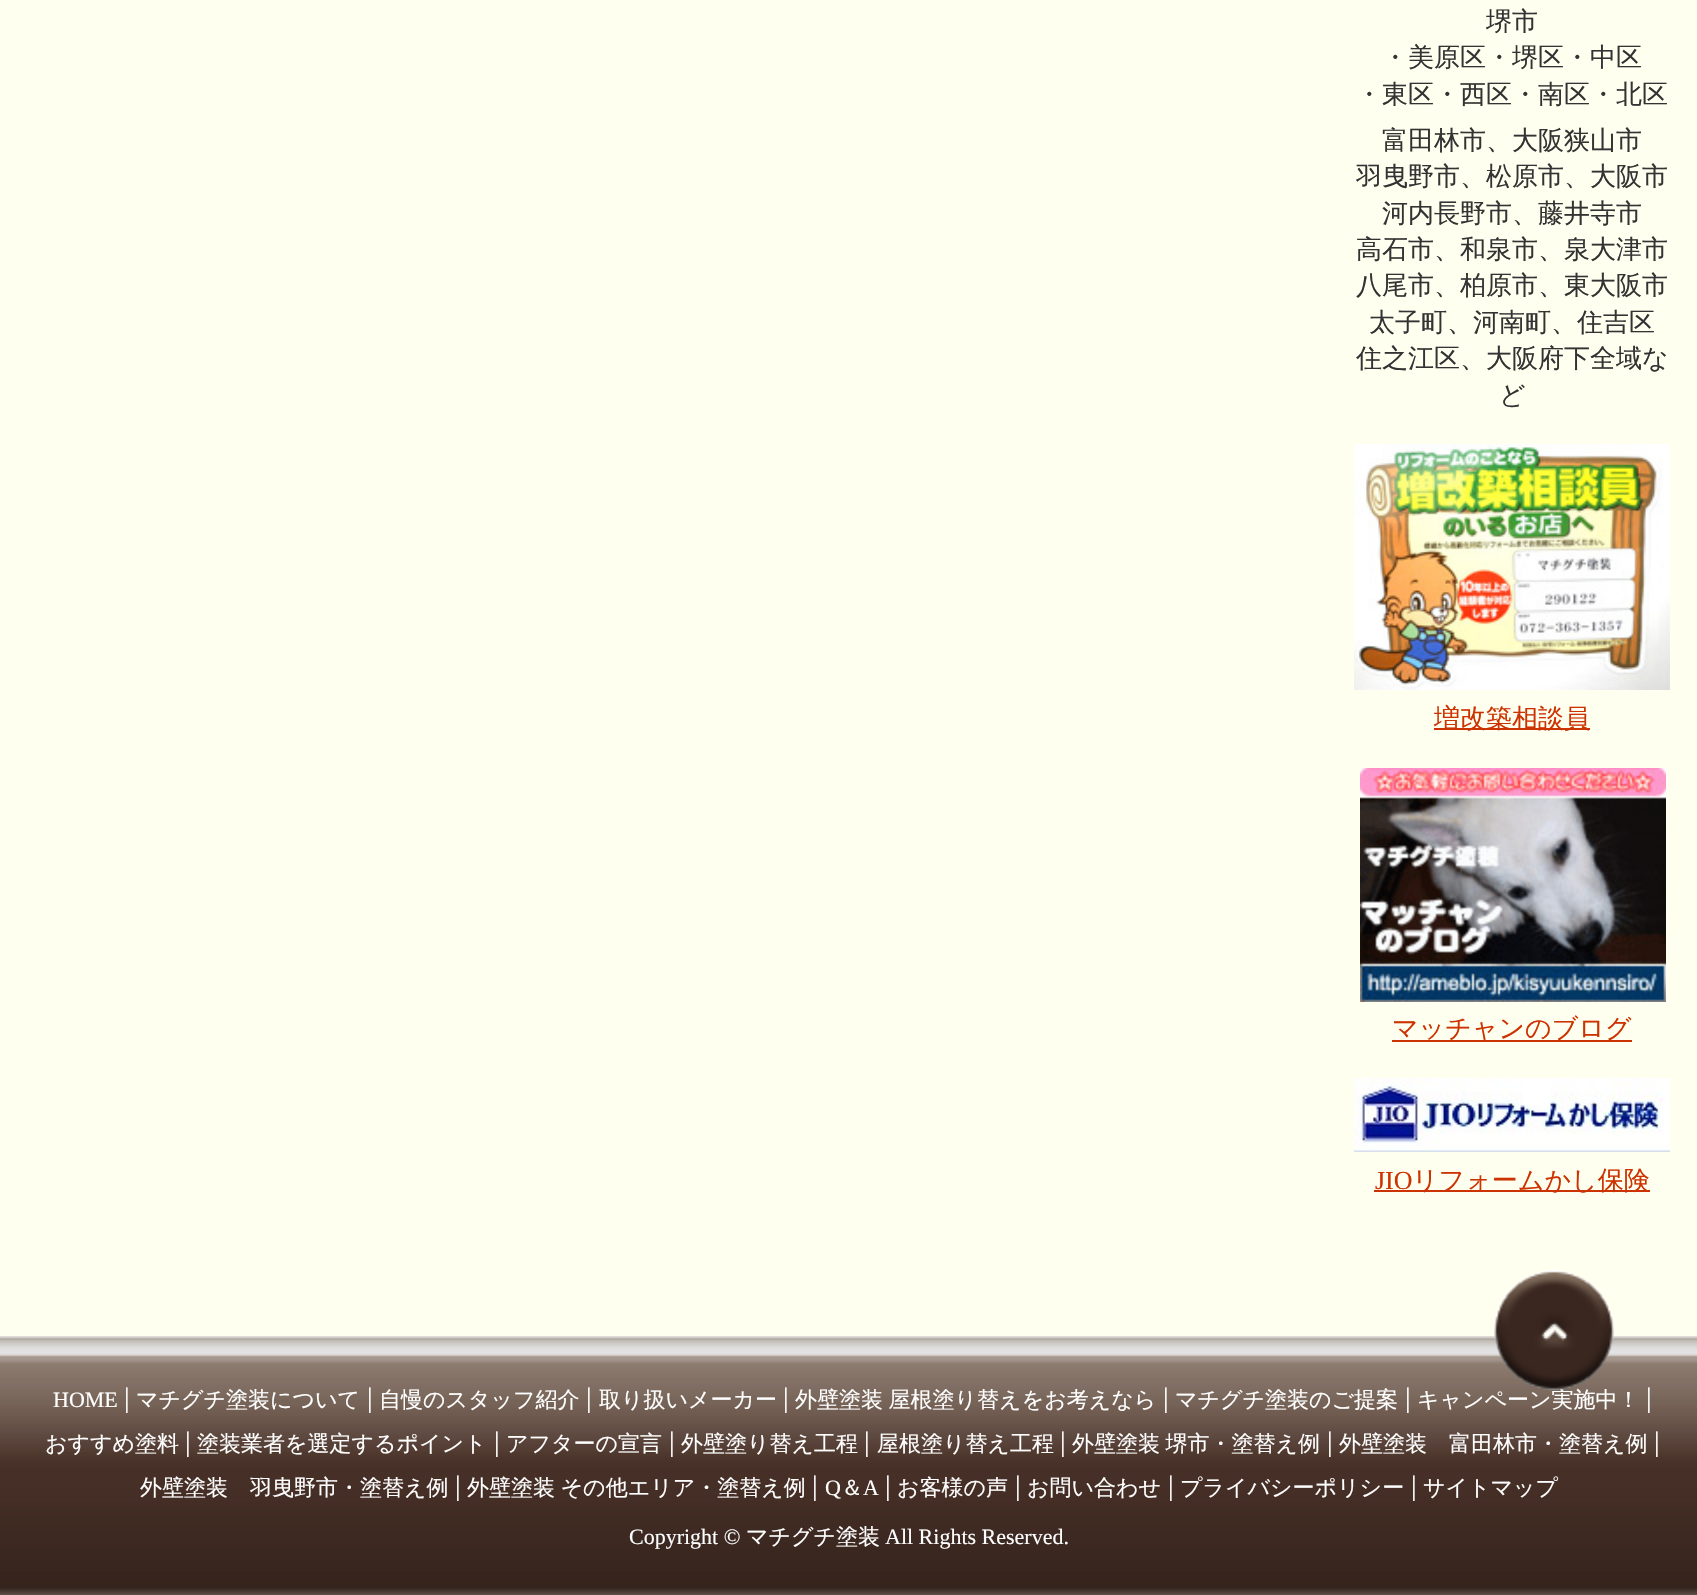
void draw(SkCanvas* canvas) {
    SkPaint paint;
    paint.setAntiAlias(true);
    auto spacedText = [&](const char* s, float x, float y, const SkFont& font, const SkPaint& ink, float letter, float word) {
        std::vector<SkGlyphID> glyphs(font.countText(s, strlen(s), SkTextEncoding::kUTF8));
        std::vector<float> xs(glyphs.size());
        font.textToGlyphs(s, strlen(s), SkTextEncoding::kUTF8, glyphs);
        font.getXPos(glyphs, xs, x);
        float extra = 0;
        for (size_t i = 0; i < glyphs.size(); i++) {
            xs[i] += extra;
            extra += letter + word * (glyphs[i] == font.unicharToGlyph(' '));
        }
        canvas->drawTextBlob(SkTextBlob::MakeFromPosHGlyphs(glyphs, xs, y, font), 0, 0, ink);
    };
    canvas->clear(0xFFFFFFF0);
    SkFont font1(fontMgr->matchFamilyStyle("WenQuanYi Zen Hei", SkFontStyle(500, SkFontStyle::kNormal_Width, SkFontStyle::kUpright_Slant)), 26);
    font1.setSubpixel(true);
    paint.setColor(0xFF333333);
    canvas->drawString("堺市", 1486, 30, font1, paint);
    canvas->drawString("・美原区・堺区・中区", 1382, 66, font1, paint);
    canvas->drawString("・東区・西区・南区・北区", 1356, 103, font1, paint);
    canvas->drawString("富田林市、大阪狭山市", 1382, 149, font1, paint);
    canvas->drawString("羽曳野市、松原市、大阪市", 1356, 185, font1, paint);
    canvas->drawString("河内長野市、藤井寺市", 1382, 222, font1, paint);
    canvas->drawString("高石市、和泉市、泉大津市", 1356, 258, font1, paint);
    canvas->drawString("八尾市、柏原市、東大阪市", 1356, 294, font1, paint);
    canvas->drawString("太子町、河南町、住吉区", 1369, 331, font1, paint);
    canvas->drawString("住之江区、大阪府下全域な", 1356, 367, font1, paint);
    canvas->drawString("ど", 1499, 404, font1, paint);
    canvas->drawImageRect(SkImages::DeferredFromEncodedData(SkData::MakeFromFileName("img1.png")), SkRect::MakeXYWH(1354, 444, 316, 246), SkSamplingOptions());
    paint.setColor(0xFFCC3300);
    canvas->drawRect(SkRect::MakeXYWH(1434, 728, 156, 2), paint);
    canvas->drawString("増改築相談員", 1434, 727, font1, paint);
    canvas->drawImageRect(SkImages::DeferredFromEncodedData(SkData::MakeFromFileName("img2.png")), SkRect::MakeXYWH(1360, 768, 306, 234), SkSamplingOptions());
    canvas->drawRect(SkRect::MakeXYWH(1392, 1040, 240, 2), paint);
    canvas->drawString("マッチャンのブログ", 1392, 1037, font1, paint);
    canvas->drawImageRect(SkImages::DeferredFromEncodedData(SkData::MakeFromFileName("img3.png")), SkRect::MakeXYWH(1354, 1078, 316, 74), SkSamplingOptions());
    SkFont font2(fontMgr->matchFamilyStyle("Liberation Serif", SkFontStyle::Normal()), 26);
    font2.setSubpixel(true);
    canvas->drawString("JIO", 1375, 1189, font2, paint);
    canvas->drawRect(SkRect::MakeXYWH(1374, 1190, 276, 2), paint);
    canvas->drawString("リフォームかし保険", 1412, 1189, font1, paint);
    canvas->drawImageRect(SkImages::DeferredFromEncodedData(SkData::MakeFromFileName("img4.png")), SkRect::MakeXYWH(0, 1336, 1697, 259), SkSamplingOptions());
    SkFont font3(fontMgr->matchFamilyStyle("WenQuanYi Zen Hei", SkFontStyle(500, SkFontStyle::kNormal_Width, SkFontStyle::kUpright_Slant)), 22);
    font3.setSubpixel(true);
    paint.setColor(0xFFFFFFFF);
    canvas->drawString("キャンペーン実施中！", 1417, 1407, font3, paint);
    canvas->drawImageRect(SkImages::DeferredFromEncodedData(SkData::MakeFromFileName("img5.png")), SkRect::MakeXYWH(1494, 1270, 120, 120), SkSamplingOptions());
    SkFont font4(fontMgr->matchFamilyStyle("Liberation Serif", SkFontStyle::Normal()), 28);
    font4.setSubpixel(true);
    canvas->drawString("|", 1646, 1407, font4, paint);
    canvas->drawString("おすすめ塗料", 45, 1451, font3, paint);
    SkFont font5(fontMgr->matchFamilyStyle("Liberation Serif", SkFontStyle::Normal()), 22);
    font5.setSubpixel(true);
    canvas->drawString("HOME", 53, 1407, font5, paint);
    canvas->drawString("|", 124, 1407, font4, paint);
    canvas->drawString("マチグチ塗装について", 136, 1407, font3, paint);
    canvas->drawString("|", 367, 1407, font4, paint);
    canvas->drawString("自慢のスタッフ紹介", 379, 1407, font3, paint);
    canvas->drawString("|", 586, 1407, font4, paint);
    canvas->drawString("取り扱いメーカー", 599, 1407, font3, paint);
    canvas->drawString("|", 783, 1407, font4, paint);
    spacedText("外壁塗装 屋根塗り替えをお考えなら", 795, 1407, font3, paint, 0, -1);
    canvas->drawString("|", 1163, 1407, font4, paint);
    canvas->drawString("マチグチ塗装のご提案", 1175, 1407, font3, paint);
    canvas->drawString("|", 1405, 1407, font4, paint);
    canvas->drawString("|", 1654, 1451, font4, paint);
    canvas->drawString("外壁塗装　羽曳野市・塗替え例", 140, 1495, font3, paint);
    canvas->drawString("|", 185, 1451, font4, paint);
    canvas->drawString("塗装業者を選定するポイント", 197, 1451, font3, paint);
    canvas->drawString("|", 494, 1451, font4, paint);
    canvas->drawString("アフターの宣言", 506, 1451, font3, paint);
    canvas->drawString("|", 669, 1451, font4, paint);
    canvas->drawString("外壁塗り替え工程", 681, 1451, font3, paint);
    canvas->drawString("|", 864, 1451, font4, paint);
    canvas->drawString("屋根塗り替え工程", 877, 1451, font3, paint);
    canvas->drawString("|", 1060, 1451, font4, paint);
    spacedText("外壁塗装 堺市・塗替え例", 1072, 1451, font3, paint, 0, -1);
    canvas->drawString("|", 1327, 1451, font4, paint);
    canvas->drawString("外壁塗装　富田林市・塗替え例", 1339, 1451, font3, paint);
    canvas->drawString("|", 455, 1495, font4, paint);
    spacedText("外壁塗装 その他エリア・塗替え例", 467, 1495, font3, paint, 0, -1);
    canvas->drawString("|", 812, 1495, font4, paint);
    canvas->drawString("Q", 825, 1495, font5, paint);
    canvas->drawString("＆", 841, 1495, font3, paint);
    canvas->drawString("A", 863, 1495, font5, paint);
    canvas->drawString("|", 885, 1495, font4, paint);
    canvas->drawString("お客様の声", 897, 1495, font3, paint);
    canvas->drawString("|", 1015, 1495, font4, paint);
    canvas->drawString("お問い合わせ", 1027, 1495, font3, paint);
    canvas->drawString("|", 1168, 1495, font4, paint);
    canvas->drawString("プライバシーポリシー", 1180, 1495, font3, paint);
    canvas->drawString("|", 1411, 1495, font4, paint);
    canvas->drawString("サイトマップ", 1423, 1495, font3, paint);
    canvas->drawString("Copyright ©", 629, 1544, font5, paint);
    canvas->drawString("マチグチ塗装", 746, 1544, font3, paint);
    canvas->drawString("All Rights Reserved.", 885, 1544, font5, paint);
}
